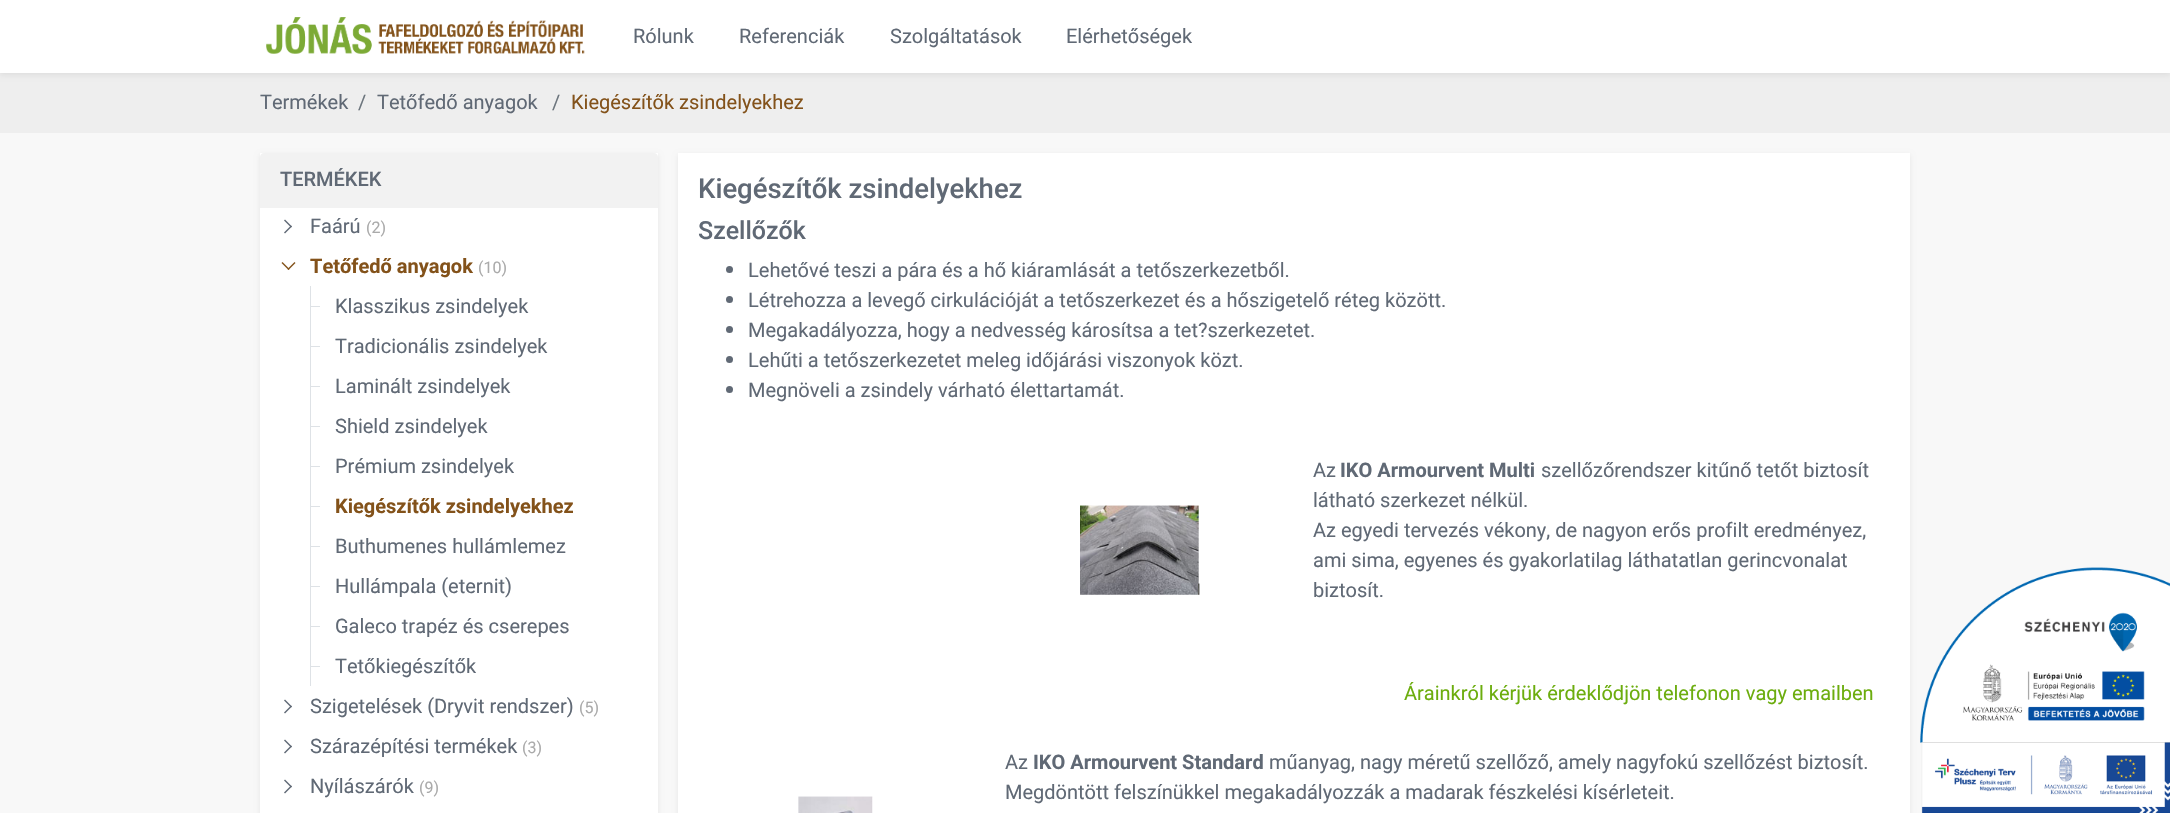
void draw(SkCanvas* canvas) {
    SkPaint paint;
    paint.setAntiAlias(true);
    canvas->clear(0xFFF8F8F8);
    paint.setColor(0xFFEEEEEE);
    canvas->drawRect(SkRect::MakeXYWH(0, 73, 2170, 60), paint);
    paint.setColor(0x12000000);
    paint.setMaskFilter(SkMaskFilter::MakeBlur(kNormal_SkBlurStyle, 2.5f));
    canvas->drawRect(SkRect::MakeXYWH(0, 3, 2170, 72), paint);
    paint.setMaskFilter(nullptr);
    paint.setColor(0xFFFFFFFF);
    canvas->drawRect(SkRect::MakeXYWH(0, 0, 2170, 73), paint);
    canvas->drawImageRect(SkImages::DeferredFromEncodedData(SkData::MakeFromFileName("img1.png")), SkRect::MakeXYWH(266, 17, 319, 37), SkSamplingOptions());
    SkFont font1(fontMgr->matchFamilyStyle("Roboto", SkFontStyle::Normal()), 20);
    font1.setSubpixel(true);
    paint.setColor(0xFF606975);
    canvas->drawString("Rólunk", 633, 43, font1, paint);
    canvas->drawString("Referenciák", 739, 43, font1, paint);
    canvas->drawString("Szolgáltatások", 890, 43, font1, paint);
    canvas->drawString("Elérhetőségek", 1066, 43, font1, paint);
    canvas->drawString("Termékek", 260, 109, font1, paint);
    paint.setColor(0xFF6C757D);
    canvas->drawString("/", 358, 109, font1, paint);
    paint.setColor(0xFF606975);
    canvas->drawString("Tetőfedő anyagok", 377, 109, font1, paint);
    paint.setColor(0xFF6C757D);
    canvas->drawString("/", 552, 109, font1, paint);
    paint.setColor(0xFF83521A);
    canvas->drawString("Kiegészítők zsindelyekhez", 571, 109, font1, paint);
    paint.setColor(0x12000000);
    paint.setMaskFilter(SkMaskFilter::MakeBlur(kNormal_SkBlurStyle, 2.5f));
    canvas->drawRect(SkRect::MakeXYWH(260, 155, 398, 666), paint);
    paint.setMaskFilter(nullptr);
    paint.setColor(0xFFFFFFFF);
    canvas->drawRect(SkRect::MakeXYWH(260, 153, 398, 660), paint);
    paint.setColor(0xFFF2F2F2);
    canvas->drawPath(SkPathBuilder().moveTo(264, 153).lineTo(654, 153).cubicTo(656, 153, 658, 155, 658, 157).lineTo(658, 208).lineTo(260, 208).lineTo(260, 157).cubicTo(260, 155, 262, 153, 264, 153).close().detach(), paint);
    SkFont font2(fontMgr->matchFamilyStyle("Roboto", SkFontStyle(500, SkFontStyle::kNormal_Width, SkFontStyle::kUpright_Slant)), 20);
    font2.setSubpixel(true);
    paint.setColor(0xFF606975);
    canvas->drawString("TERMÉKEK", 280, 186, font2, paint);
    canvas->drawPath(SkPathBuilder().moveTo(292, 226.5f).lineTo(285, 233.5f).lineTo(284, 232.5f).lineTo(291, 225.5f).close().detach(), paint);
    canvas->drawPath(SkPathBuilder().moveTo(292, 226.5f).lineTo(291, 227.5f).lineTo(284, 220.5f).lineTo(285, 219.5f).close().detach(), paint);
    canvas->drawString("Faárú", 310, 233, font1, paint);
    SkFont font3(fontMgr->matchFamilyStyle("Roboto", SkFontStyle::Normal()), 16);
    font3.setSubpixel(true);
    paint.setColor(0xFFAAAAAA);
    canvas->drawString("(2)", 366, 233, font3, paint);
    paint.setColor(0xFF83521A);
    canvas->drawPath(SkPathBuilder().moveTo(288.5f, 270).lineTo(281.5f, 263).lineTo(282.5f, 262).lineTo(289.5f, 269).close().detach(), paint);
    canvas->drawPath(SkPathBuilder().moveTo(288.5f, 270).lineTo(287.5f, 269).lineTo(294.5f, 262).lineTo(295.5f, 263).close().detach(), paint);
    SkFont font4(fontMgr->matchFamilyStyle("Roboto", SkFontStyle::Bold()), 20);
    font4.setSubpixel(true);
    canvas->drawString("Tetőfedő anyagok", 310, 273, font4, paint);
    paint.setColor(0xFFAAAAAA);
    canvas->drawString("(10)", 478, 273, font3, paint);
    paint.setColor(0xFFDEE2E6);
    canvas->drawRect(SkRect::MakeXYWH(310, 286, 1, 400), paint);
    canvas->drawRect(SkRect::MakeXYWH(310, 306, 10, 1), paint);
    paint.setColor(0xFF606975);
    canvas->drawString("Klasszikus zsindelyek", 335, 313, font1, paint);
    paint.setColor(0xFFDEE2E6);
    canvas->drawRect(SkRect::MakeXYWH(310, 346, 10, 1), paint);
    paint.setColor(0xFF606975);
    canvas->drawString("Tradicionális zsindelyek", 335, 353, font1, paint);
    paint.setColor(0xFFDEE2E6);
    canvas->drawRect(SkRect::MakeXYWH(310, 386, 10, 1), paint);
    paint.setColor(0xFF606975);
    canvas->drawString("Laminált zsindelyek", 335, 393, font1, paint);
    paint.setColor(0xFFDEE2E6);
    canvas->drawRect(SkRect::MakeXYWH(310, 426, 10, 1), paint);
    paint.setColor(0xFF606975);
    canvas->drawString("Shield zsindelyek", 335, 433, font1, paint);
    paint.setColor(0xFFDEE2E6);
    canvas->drawRect(SkRect::MakeXYWH(310, 466, 10, 1), paint);
    paint.setColor(0xFF606975);
    canvas->drawString("Prémium zsindelyek", 335, 473, font1, paint);
    paint.setColor(0xFFDEE2E6);
    canvas->drawRect(SkRect::MakeXYWH(310, 506, 10, 1), paint);
    paint.setColor(0xFF83521A);
    canvas->drawString("Kiegészítők zsindelyekhez", 335, 513, font4, paint);
    paint.setColor(0xFFDEE2E6);
    canvas->drawRect(SkRect::MakeXYWH(310, 546, 10, 1), paint);
    paint.setColor(0xFF606975);
    canvas->drawString("Buthumenes hullámlemez", 335, 553, font1, paint);
    paint.setColor(0xFFDEE2E6);
    canvas->drawRect(SkRect::MakeXYWH(310, 586, 10, 1), paint);
    paint.setColor(0xFF606975);
    canvas->drawString("Hullámpala (eternit)", 335, 593, font1, paint);
    paint.setColor(0xFFDEE2E6);
    canvas->drawRect(SkRect::MakeXYWH(310, 626, 10, 1), paint);
    paint.setColor(0xFF606975);
    canvas->drawString("Galeco trapéz és cserepes", 335, 633, font1, paint);
    paint.setColor(0xFFDEE2E6);
    canvas->drawRect(SkRect::MakeXYWH(310, 666, 10, 1), paint);
    paint.setColor(0xFF606975);
    canvas->drawString("Tetőkiegészítők", 335, 673, font1, paint);
    canvas->drawPath(SkPathBuilder().moveTo(292, 706.5f).lineTo(285, 713.5f).lineTo(284, 712.5f).lineTo(291, 705.5f).close().detach(), paint);
    canvas->drawPath(SkPathBuilder().moveTo(292, 706.5f).lineTo(291, 707.5f).lineTo(284, 700.5f).lineTo(285, 699.5f).close().detach(), paint);
    canvas->drawString("Szigetelések (Dryvit rendszer)", 310, 713, font1, paint);
    paint.setColor(0xFFAAAAAA);
    canvas->drawString("(5)", 579, 713, font3, paint);
    paint.setColor(0xFF606975);
    canvas->drawPath(SkPathBuilder().moveTo(292, 746.5f).lineTo(285, 753.5f).lineTo(284, 752.5f).lineTo(291, 745.5f).close().detach(), paint);
    canvas->drawPath(SkPathBuilder().moveTo(292, 746.5f).lineTo(291, 747.5f).lineTo(284, 740.5f).lineTo(285, 739.5f).close().detach(), paint);
    canvas->drawString("Szárazépítési termékek", 310, 753, font1, paint);
    paint.setColor(0xFFAAAAAA);
    canvas->drawString("(3)", 522, 753, font3, paint);
    paint.setColor(0xFF606975);
    canvas->drawPath(SkPathBuilder().moveTo(292, 786.5f).lineTo(285, 793.5f).lineTo(284, 792.5f).lineTo(291, 785.5f).close().detach(), paint);
    canvas->drawPath(SkPathBuilder().moveTo(292, 786.5f).lineTo(291, 787.5f).lineTo(284, 780.5f).lineTo(285, 779.5f).close().detach(), paint);
    canvas->drawString("Nyílászárók", 310, 793, font1, paint);
    paint.setColor(0xFFAAAAAA);
    canvas->drawString("(9)", 419, 793, font3, paint);
    paint.setColor(0x12000000);
    paint.setMaskFilter(SkMaskFilter::MakeBlur(kNormal_SkBlurStyle, 2.5f));
    canvas->drawRect(SkRect::MakeXYWH(678, 155, 1232, 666), paint);
    paint.setMaskFilter(nullptr);
    paint.setColor(0xFFFFFFFF);
    canvas->drawRect(SkRect::MakeXYWH(678, 153, 1232, 660), paint);
    SkFont font5(fontMgr->matchFamilyStyle("Roboto", SkFontStyle(500, SkFontStyle::kNormal_Width, SkFontStyle::kUpright_Slant)), 27.5f);
    font5.setSubpixel(true);
    paint.setColor(0xFF606975);
    canvas->drawString("Kiegészítők zsindelyekhez", 698, 198, font5, paint);
    SkFont font6(fontMgr->matchFamilyStyle("Roboto", SkFontStyle(500, SkFontStyle::kNormal_Width, SkFontStyle::kUpright_Slant)), 25);
    font6.setSubpixel(true);
    canvas->drawString("Szellőzők", 698, 239, font6, paint);
    canvas->drawCircle(729.5f, 269.5f, 3.5f, paint);
    canvas->drawString("Lehetővé teszi a pára és a hő kiáramlását a tetőszerkezetből.", 748, 277, font1, paint);
    canvas->drawCircle(729.5f, 299.5f, 3.5f, paint);
    canvas->drawString("Létrehozza a levegő cirkulációját a tetőszerkezet és a hőszigetelő réteg között.", 748, 307, font1, paint);
    canvas->drawCircle(729.5f, 329.5f, 3.5f, paint);
    canvas->drawString("Megakadályozza, hogy a nedvesség károsítsa a tet?szerkezetet.", 748, 337, font1, paint);
    canvas->drawCircle(729.5f, 359.5f, 3.5f, paint);
    canvas->drawString("Lehűti a tetőszerkezetet meleg időjárási viszonyok közt.", 748, 367, font1, paint);
    canvas->drawCircle(729.5f, 389.5f, 3.5f, paint);
    canvas->drawString("Megnöveli a zsindely várható élettartamát.", 748, 397, font1, paint);
    canvas->drawImageRect(SkImages::DeferredFromEncodedData(SkData::MakeFromFileName("img2.png")), SkRect::MakeXYWH(1080, 505, 120, 90), SkSamplingOptions());
    canvas->drawString("Az", 1313, 477, font1, paint);
    canvas->drawString("IKO Armourvent Multi", 1340, 477, font4, paint);
    canvas->drawString("szellőzőrendszer kitűnő tetőt biztosít", 1541, 477, font1, paint);
    canvas->drawString("látható szerkezet nélkül.", 1313, 507, font1, paint);
    canvas->drawString("Az egyedi tervezés vékony, de nagyon erős profilt eredményez,", 1313, 537, font1, paint);
    canvas->drawString("ami sima, egyenes és gyakorlatilag láthatatlan gerincvonalat", 1313, 567, font1, paint);
    canvas->drawString("biztosít.", 1313, 597, font1, paint);
    paint.setColor(0xFF6CAD0E);
    canvas->drawString("Árainkról kérjük érdeklődjön telefonon vagy emailben", 1404, 700, font1, paint);
    canvas->drawImageRect(SkImages::DeferredFromEncodedData(SkData::MakeFromFileName("img3.png")), SkRect::MakeXYWH(798, 796, 75, 17), SkSamplingOptions());
    paint.setColor(0xFF606975);
    canvas->drawString("Az", 1005, 769, font1, paint);
    canvas->drawString("IKO Armourvent Standard", 1033, 769, font4, paint);
    canvas->drawString("műanyag, nagy méretű szellőző, amely nagyfokú szellőzést biztosít.", 1269, 769, font1, paint);
    canvas->drawString("Megdöntött felszínükkel megakadályozzák a madarak fészkelési kísérleteit.", 1005, 799, font1, paint);
    canvas->drawImageRect(SkImages::DeferredFromEncodedData(SkData::MakeFromFileName("img4.png")), SkRect::MakeXYWH(1920, 567, 250, 246), SkSamplingOptions());
}
